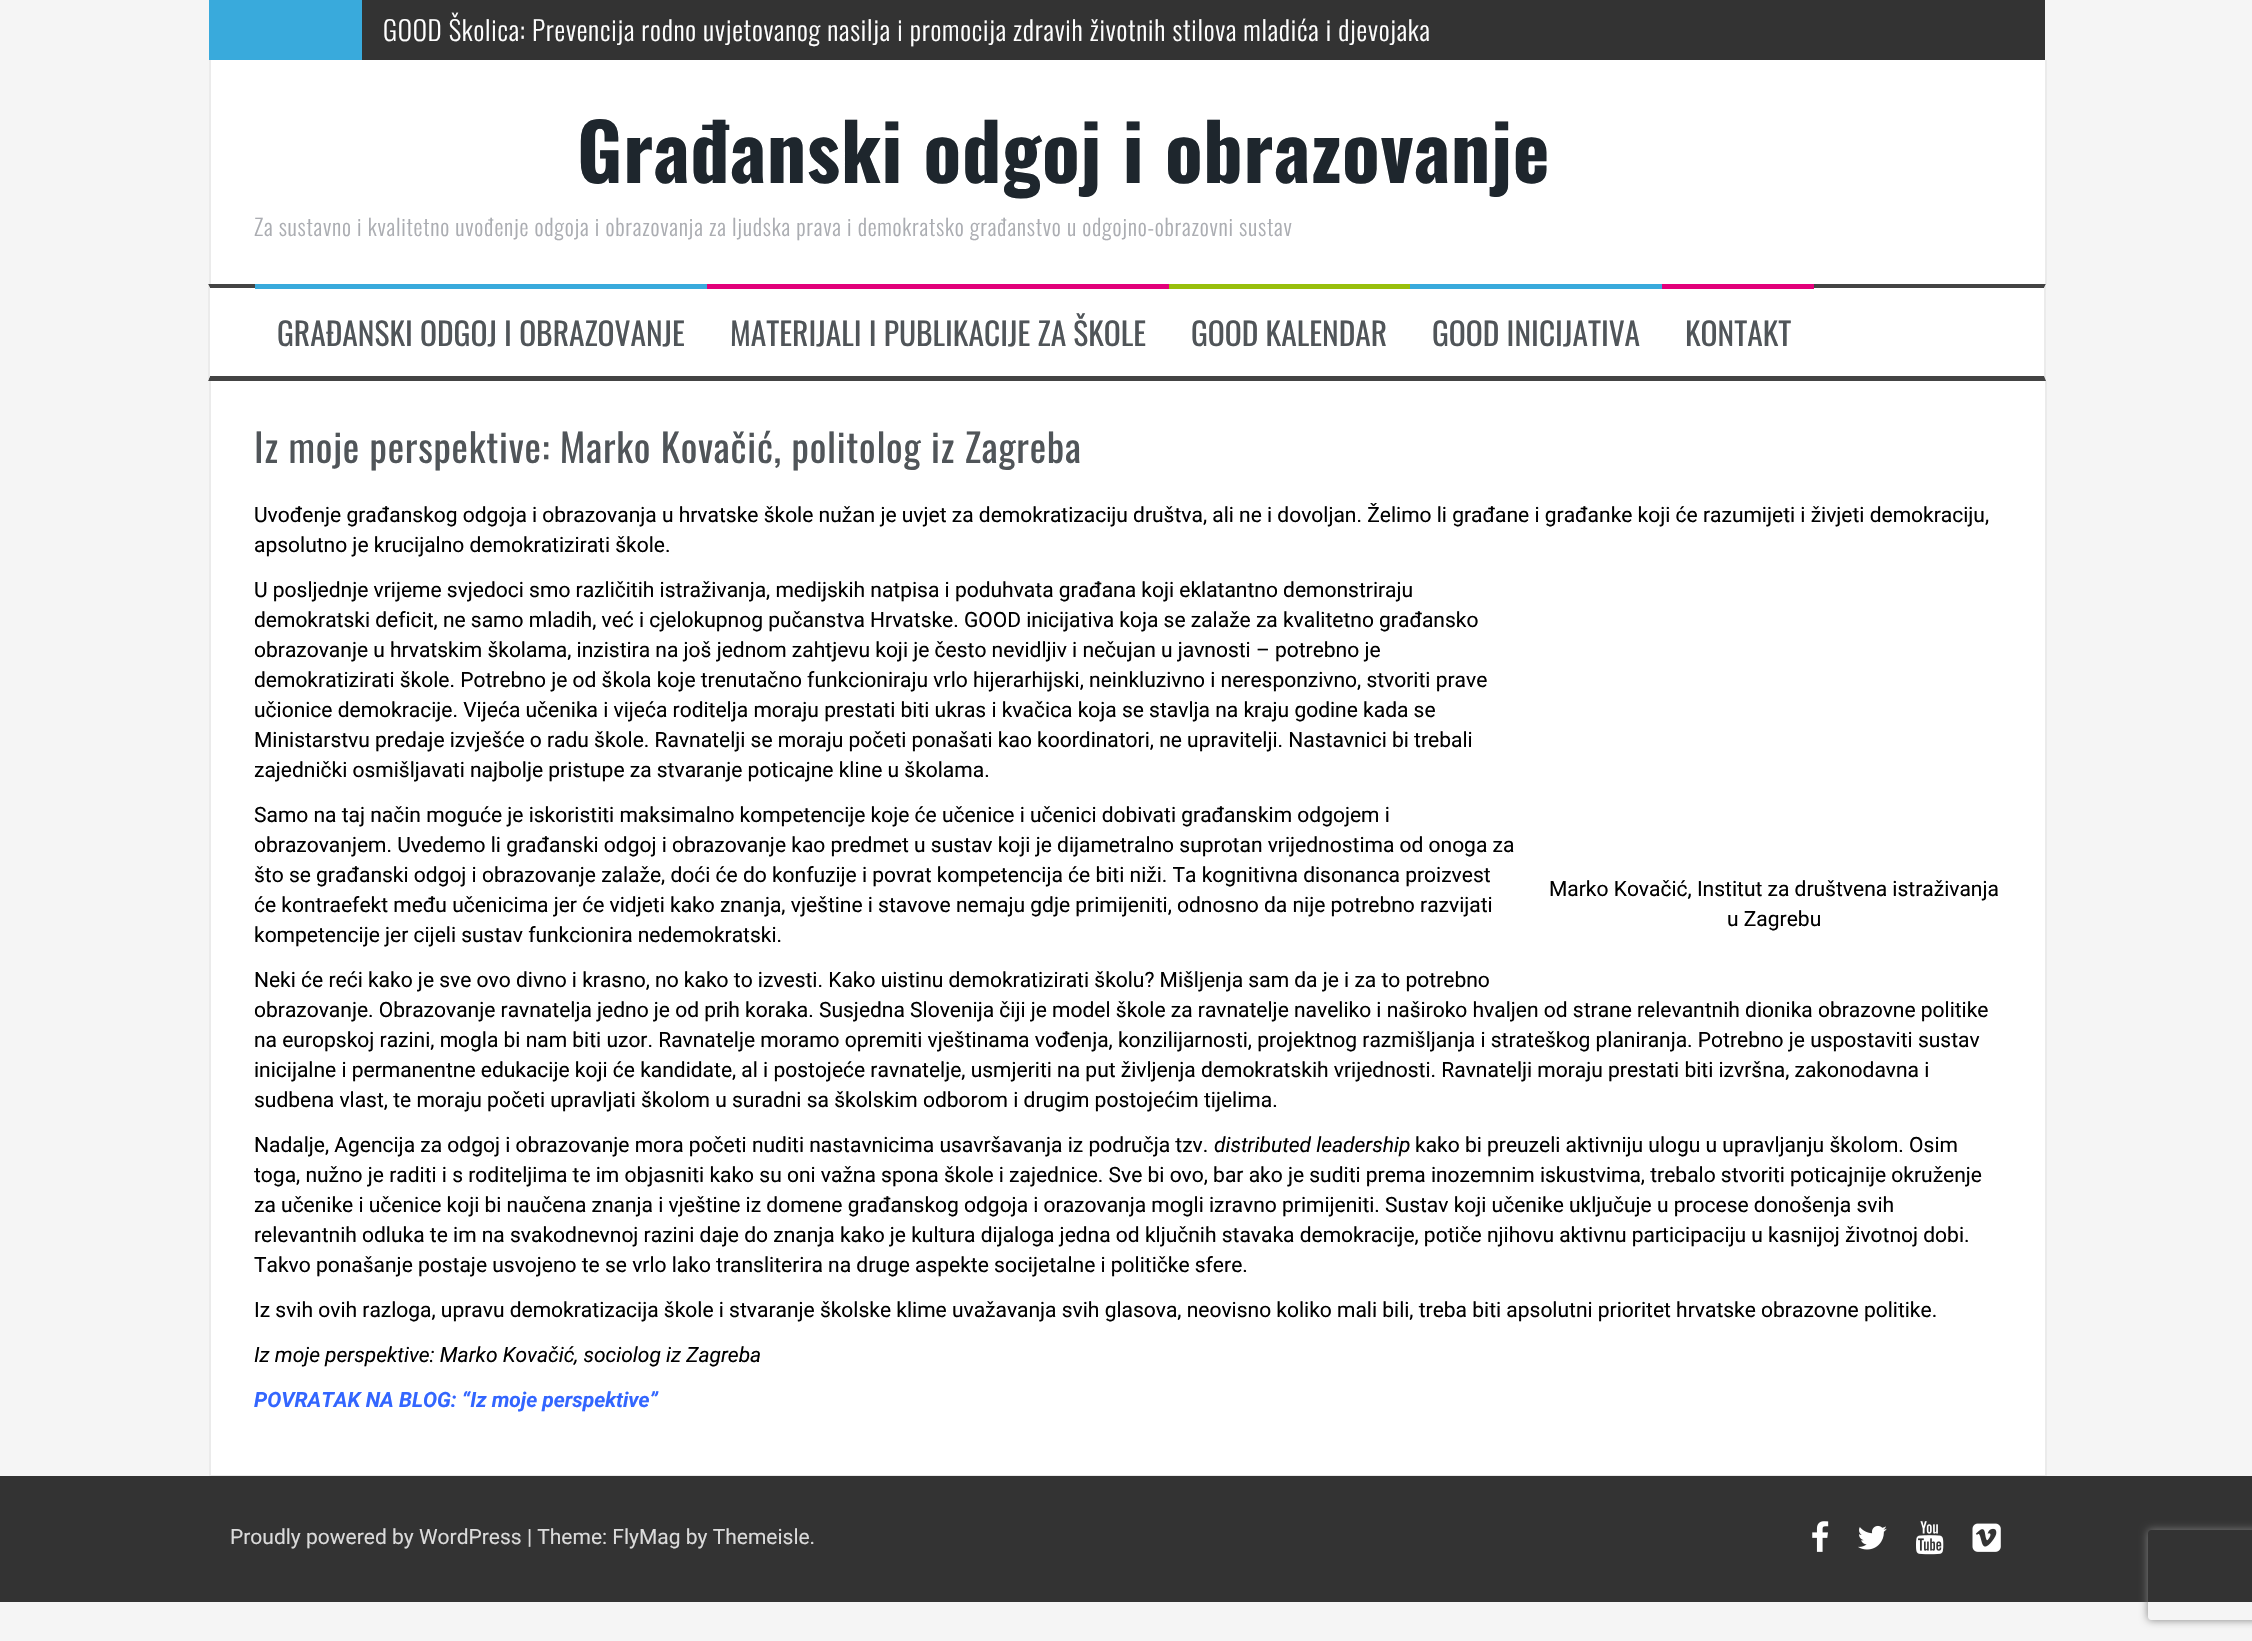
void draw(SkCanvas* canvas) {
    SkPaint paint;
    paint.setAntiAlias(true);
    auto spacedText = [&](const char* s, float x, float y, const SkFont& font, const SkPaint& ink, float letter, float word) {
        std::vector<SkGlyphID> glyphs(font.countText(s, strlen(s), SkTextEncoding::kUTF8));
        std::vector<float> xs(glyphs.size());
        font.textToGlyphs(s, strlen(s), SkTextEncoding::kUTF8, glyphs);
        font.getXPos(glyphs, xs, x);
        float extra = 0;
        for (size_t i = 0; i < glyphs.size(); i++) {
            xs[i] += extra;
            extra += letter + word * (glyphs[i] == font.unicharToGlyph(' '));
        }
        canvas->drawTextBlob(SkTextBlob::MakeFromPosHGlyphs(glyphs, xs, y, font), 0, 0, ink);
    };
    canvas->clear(0xFFF5F5F5);
    paint.setColor(0xFF39AADC);
    canvas->drawRect(SkRect::MakeXYWH(209, 0, 153, 60), paint);
    paint.setColor(0xFF333333);
    canvas->drawRect(SkRect::MakeXYWH(362, 0, 1683, 60), paint);
    SkFont font1(fontMgr->matchFamilyStyle("Oswald", SkFontStyle(300, SkFontStyle::kNormal_Width, SkFontStyle::kUpright_Slant)), 27);
    font1.setSubpixel(true);
    paint.setColor(0xFFFFFFFF);
    spacedText("GOOD Školica: Prevencija rodno uvjetovanog nasilja i promocija zdravih životnih stilova mladića i djevojaka", 383, 41, font1, paint, 0.75f, 0);
    canvas->drawRect(SkRect::MakeXYWH(211, 60, 1834, 224), paint);
    paint.setColor(0xFFEBEBEB);
    canvas->drawRect(SkRect::MakeXYWH(2045, 60, 2, 224), paint);
    canvas->drawRect(SkRect::MakeXYWH(209, 60, 2, 224), paint);
    SkFont font2(fontMgr->matchFamilyStyle("Oswald", SkFontStyle::Bold()), 78);
    font2.setSubpixel(true);
    paint.setColor(0xFF1E262D);
    spacedText("Građanski odgoj i obrazovanje", 577, 183, font2, paint, 0.75f, 0);
    SkFont font3(fontMgr->matchFamilyStyle("Oswald", SkFontStyle(300, SkFontStyle::kNormal_Width, SkFontStyle::kUpright_Slant)), 22.5f);
    font3.setSubpixel(true);
    paint.setColor(0xFFABADB2);
    spacedText("Za sustavno i kvalitetno uvođenje odgoja i obrazovanja za ljudska prava i demokratsko građanstvo u odgojno-obrazovni sustav", 254, 236, font3, paint, 0.75f, 0);
    paint.setColor(0xFFFFFFFF);
    canvas->drawRect(SkRect::MakeXYWH(210, 288, 1835, 89), paint);
    paint.setColor(0xFF444444);
    canvas->drawPath(SkPathBuilder().moveTo(208, 284).lineTo(2046, 284).lineTo(2044, 288).lineTo(210, 288).close().detach(), paint);
    paint.setColor(0xFFEBEBEB);
    canvas->drawPath(SkPathBuilder().moveTo(2046, 284).lineTo(2046, 381).lineTo(2044, 376).lineTo(2044, 288).close().detach(), paint);
    paint.setColor(0xFF444444);
    canvas->drawPath(SkPathBuilder().moveTo(2046, 381).lineTo(208, 381).lineTo(210, 376).lineTo(2044, 376).close().detach(), paint);
    paint.setColor(0xFFEBEBEB);
    canvas->drawPath(SkPathBuilder().moveTo(208, 381).lineTo(208, 284).lineTo(210, 288).lineTo(210, 376).close().detach(), paint);
    paint.setColor(0xFF39AADC);
    canvas->drawRect(SkRect::MakeXYWH(255, 284, 452, 5), paint);
    SkFont font4(fontMgr->matchFamilyStyle("Oswald", SkFontStyle::Normal()), 31.5f);
    font4.setSubpixel(true);
    paint.setColor(0xFF505559);
    canvas->drawString("GRAĐANSKI ODGOJ I OBRAZOVANJE", 277, 346, font4, paint);
    paint.setColor(0xFFE2007A);
    canvas->drawRect(SkRect::MakeXYWH(707, 284, 462, 5), paint);
    paint.setColor(0xFF505559);
    canvas->drawString("MATERIJALI I PUBLIKACIJE ZA ŠKOLE", 730, 346, font4, paint);
    paint.setColor(0xFF98BF0C);
    canvas->drawRect(SkRect::MakeXYWH(1169, 284, 241, 5), paint);
    paint.setColor(0xFF505559);
    canvas->drawString("GOOD KALENDAR", 1191, 346, font4, paint);
    paint.setColor(0xFF39AADC);
    canvas->drawRect(SkRect::MakeXYWH(1410, 284, 252, 5), paint);
    paint.setColor(0xFF505559);
    canvas->drawString("GOOD INICIJATIVA", 1432, 346, font4, paint);
    paint.setColor(0xFFE2007A);
    canvas->drawRect(SkRect::MakeXYWH(1662, 284, 152, 5), paint);
    paint.setColor(0xFF505559);
    canvas->drawString("KONTAKT", 1685, 346, font4, paint);
    paint.setColor(0xFFFFFFFF);
    canvas->drawRect(SkRect::MakeXYWH(211, 381, 1834, 1094), paint);
    paint.setColor(0xFFEBEBEB);
    canvas->drawRect(SkRect::MakeXYWH(2045, 381, 2, 1095), paint);
    canvas->drawRect(SkRect::MakeXYWH(209, 1475, 1837, 1), paint);
    canvas->drawRect(SkRect::MakeXYWH(209, 381, 2, 1095), paint);
    SkFont font5(fontMgr->matchFamilyStyle("Oswald", SkFontStyle::Normal()), 39);
    font5.setSubpixel(true);
    paint.setColor(0xFF505559);
    spacedText("Iz moje perspektive: Marko Kovačić, politolog iz Zagreba", 254, 463, font5, paint, 0.75f, 0);
    SkFont font6(fontMgr->matchFamilyStyle("Roboto", SkFontStyle::Normal()), 21);
    font6.setSubpixel(true);
    paint.setColor(0xFF000000);
    canvas->drawString("Uvođenje građanskog odgoja i obrazovanja u hrvatske škole nužan je uvjet za demokratizaciju društva, ali ne i dovoljan. Želimo li građane i građanke koji će razumijeti i živjeti demokraciju,", 254, 522, font6, paint);
    canvas->drawString("apsolutno je krucijalno demokratizirati škole.", 254, 552, font6, paint);
    canvas->drawString("U posljednje vrijeme svjedoci smo različitih istraživanja, medijskih natpisa i poduhvata građana koji eklatantno demonstriraju", 254, 597, font6, paint);
    canvas->drawString("demokratski deficit, ne samo mladih, već i cjelokupnog pučanstva Hrvatske. GOOD inicijativa koja se zalaže za kvalitetno građansko", 254, 627, font6, paint);
    canvas->drawString("obrazovanje u hrvatskim školama, inzistira na još jednom zahtjevu koji je često nevidljiv i nečujan u javnosti – potrebno je", 254, 657, font6, paint);
    canvas->drawString("demokratizirati škole. Potrebno je od škola koje trenutačno funkcioniraju vrlo hijerarhijski, neinkluzivno i neresponzivno, stvoriti prave", 254, 687, font6, paint);
    canvas->drawString("učionice demokracije. Vijeća učenika i vijeća roditelja moraju prestati biti ukras i kvačica koja se stavlja na kraju godine kada se", 254, 717, font6, paint);
    canvas->drawString("Ministarstvu predaje izvješće o radu škole. Ravnatelji se moraju početi ponašati kao koordinatori, ne upravitelji. Nastavnici bi trebali", 254, 747, font6, paint);
    canvas->drawString("zajednički osmišljavati najbolje pristupe za stvaranje poticajne kline u školama.", 254, 777, font6, paint);
    canvas->drawString("Samo na taj način moguće je iskoristiti maksimalno kompetencije koje će učenice i učenici dobivati građanskim odgojem i", 254, 822, font6, paint);
    canvas->drawString("obrazovanjem. Uvedemo li građanski odgoj i obrazovanje kao predmet u sustav koji je dijametralno suprotan vrijednostima od onoga za", 254, 852, font6, paint);
    canvas->drawString("što se građanski odgoj i obrazovanje zalaže, doći će do konfuzije i povrat kompetencija će biti niži. Ta kognitivna disonanca proizvest", 254, 882, font6, paint);
    canvas->drawString("će kontraefekt među učenicima jer će vidjeti kako znanja, vještine i stavove nemaju gdje primijeniti, odnosno da nije potrebno razvijati", 254, 912, font6, paint);
    canvas->drawString("kompetencije jer cijeli sustav funkcionira nedemokratski.", 254, 942, font6, paint);
    canvas->drawString("Marko Kovačić, Institut za društvena istraživanja", 1549, 896, font6, paint);
    canvas->drawString("u Zagrebu", 1727, 926, font6, paint);
    canvas->drawString("Neki će reći kako je sve ovo divno i krasno, no kako to izvesti. Kako uistinu demokratizirati školu? Mišljenja sam da je i za to potrebno", 254, 987, font6, paint);
    canvas->drawString("obrazovanje. Obrazovanje ravnatelja jedno je od prih koraka. Susjedna Slovenija čiji je model škole za ravnatelje naveliko i naširoko hvaljen od strane relevantnih dionika obrazovne politike", 254, 1017, font6, paint);
    canvas->drawString("na europskoj razini, mogla bi nam biti uzor. Ravnatelje moramo opremiti vještinama vođenja, konzilijarnosti, projektnog razmišljanja i strateškog planiranja. Potrebno je uspostaviti sustav", 254, 1047, font6, paint);
    canvas->drawString("inicijalne i permanentne edukacije koji će kandidate, al i postojeće ravnatelje, usmjeriti na put življenja demokratskih vrijednosti. Ravnatelji moraju prestati biti izvršna, zakonodavna i", 254, 1077, font6, paint);
    canvas->drawString("sudbena vlast, te moraju početi upravljati školom u suradni sa školskim odborom i drugim postojećim tijelima.", 254, 1107, font6, paint);
    canvas->drawString("Nadalje, Agencija za odgoj i obrazovanje mora početi nuditi nastavnicima usavršavanja iz područja tzv.", 254, 1152, font6, paint);
    SkFont font7(fontMgr->matchFamilyStyle("Roboto", SkFontStyle::Italic()), 21);
    font7.setSubpixel(true);
    canvas->drawString("distributed leadership", 1214, 1152, font7, paint);
    canvas->drawString("kako bi preuzeli aktivniju ulogu u upravljanju školom. Osim", 1415, 1152, font6, paint);
    canvas->drawString("toga, nužno je raditi i s roditeljima te im objasniti kako su oni važna spona škole i zajednice. Sve bi ovo, bar ako je suditi prema inozemnim iskustvima, trebalo stvoriti poticajnije okruženje", 254, 1182, font6, paint);
    canvas->drawString("za učenike i učenice koji bi naučena znanja i vještine iz domene građanskog odgoja i orazovanja mogli izravno primijeniti. Sustav koji učenike uključuje u procese donošenja svih", 254, 1212, font6, paint);
    canvas->drawString("relevantnih odluka te im na svakodnevnoj razini daje do znanja kako je kultura dijaloga jedna od ključnih stavaka demokracije, potiče njihovu aktivnu participaciju u kasnijoj životnoj dobi.", 254, 1242, font6, paint);
    canvas->drawString("Takvo ponašanje postaje usvojeno te se vrlo lako transliterira na druge aspekte socijetalne i političke sfere.", 254, 1272, font6, paint);
    canvas->drawString("Iz svih ovih razloga, upravu demokratizacija škole i stvaranje školske klime uvažavanja svih glasova, neovisno koliko mali bili, treba biti apsolutni prioritet hrvatske obrazovne politike.", 254, 1317, font6, paint);
    canvas->drawString("Iz moje perspektive: Marko Kovačić, sociolog iz Zagreba", 254, 1362, font7, paint);
    SkFont font8(fontMgr->matchFamilyStyle("Roboto", SkFontStyle::BoldItalic()), 21);
    font8.setSubpixel(true);
    paint.setColor(0xFF3366FF);
    canvas->drawString("POVRATAK NA BLOG: “Iz moje perspektive”", 254, 1407, font8, paint);
    paint.setColor(0xFF333333);
    canvas->drawRect(SkRect::MakeXYWH(0, 1476, 2252, 126), paint);
    paint.setColor(0xFFDADADA);
    canvas->drawString("Proudly powered by WordPress | Theme: FlyMag by Themeisle.", 230, 1544, font6, paint);
    canvas->drawImageRect(SkImages::DeferredFromEncodedData(SkData::MakeFromFileName("img1.png")), SkRect::MakeXYWH(1812, 1521, 17, 31), SkSamplingOptions());
    canvas->drawImageRect(SkImages::DeferredFromEncodedData(SkData::MakeFromFileName("img2.png")), SkRect::MakeXYWH(1858, 1525, 29, 25), SkSamplingOptions());
    canvas->drawImageRect(SkImages::DeferredFromEncodedData(SkData::MakeFromFileName("img3.png")), SkRect::MakeXYWH(1916, 1521, 28, 34), SkSamplingOptions());
    canvas->drawImageRect(SkImages::DeferredFromEncodedData(SkData::MakeFromFileName("img4.png")), SkRect::MakeXYWH(1972, 1523, 29, 29), SkSamplingOptions());
    canvas->save();
    canvas->clipPath(SkPathBuilder(SkPathFillType::kEvenOdd).moveTo(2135, 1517).lineTo(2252, 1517).lineTo(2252, 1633).lineTo(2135, 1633).close().moveTo(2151, 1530).lineTo(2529, 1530).cubicTo(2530.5f, 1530, 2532, 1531.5f, 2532, 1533).lineTo(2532, 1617).cubicTo(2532, 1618.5f, 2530.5f, 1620, 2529, 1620).lineTo(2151, 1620).cubicTo(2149.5f, 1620, 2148, 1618.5f, 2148, 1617).lineTo(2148, 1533).cubicTo(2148, 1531.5f, 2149.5f, 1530, 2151, 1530).close().detach(), true);
    paint.setColor(0xFF808080);
    paint.setMaskFilter(SkMaskFilter::MakeBlur(kNormal_SkBlurStyle, 4));
    canvas->drawRoundRect(SkRect::MakeXYWH(2148, 1530, 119, 90), 3, 3, paint);
    paint.setMaskFilter(nullptr);
    canvas->restore();
}
